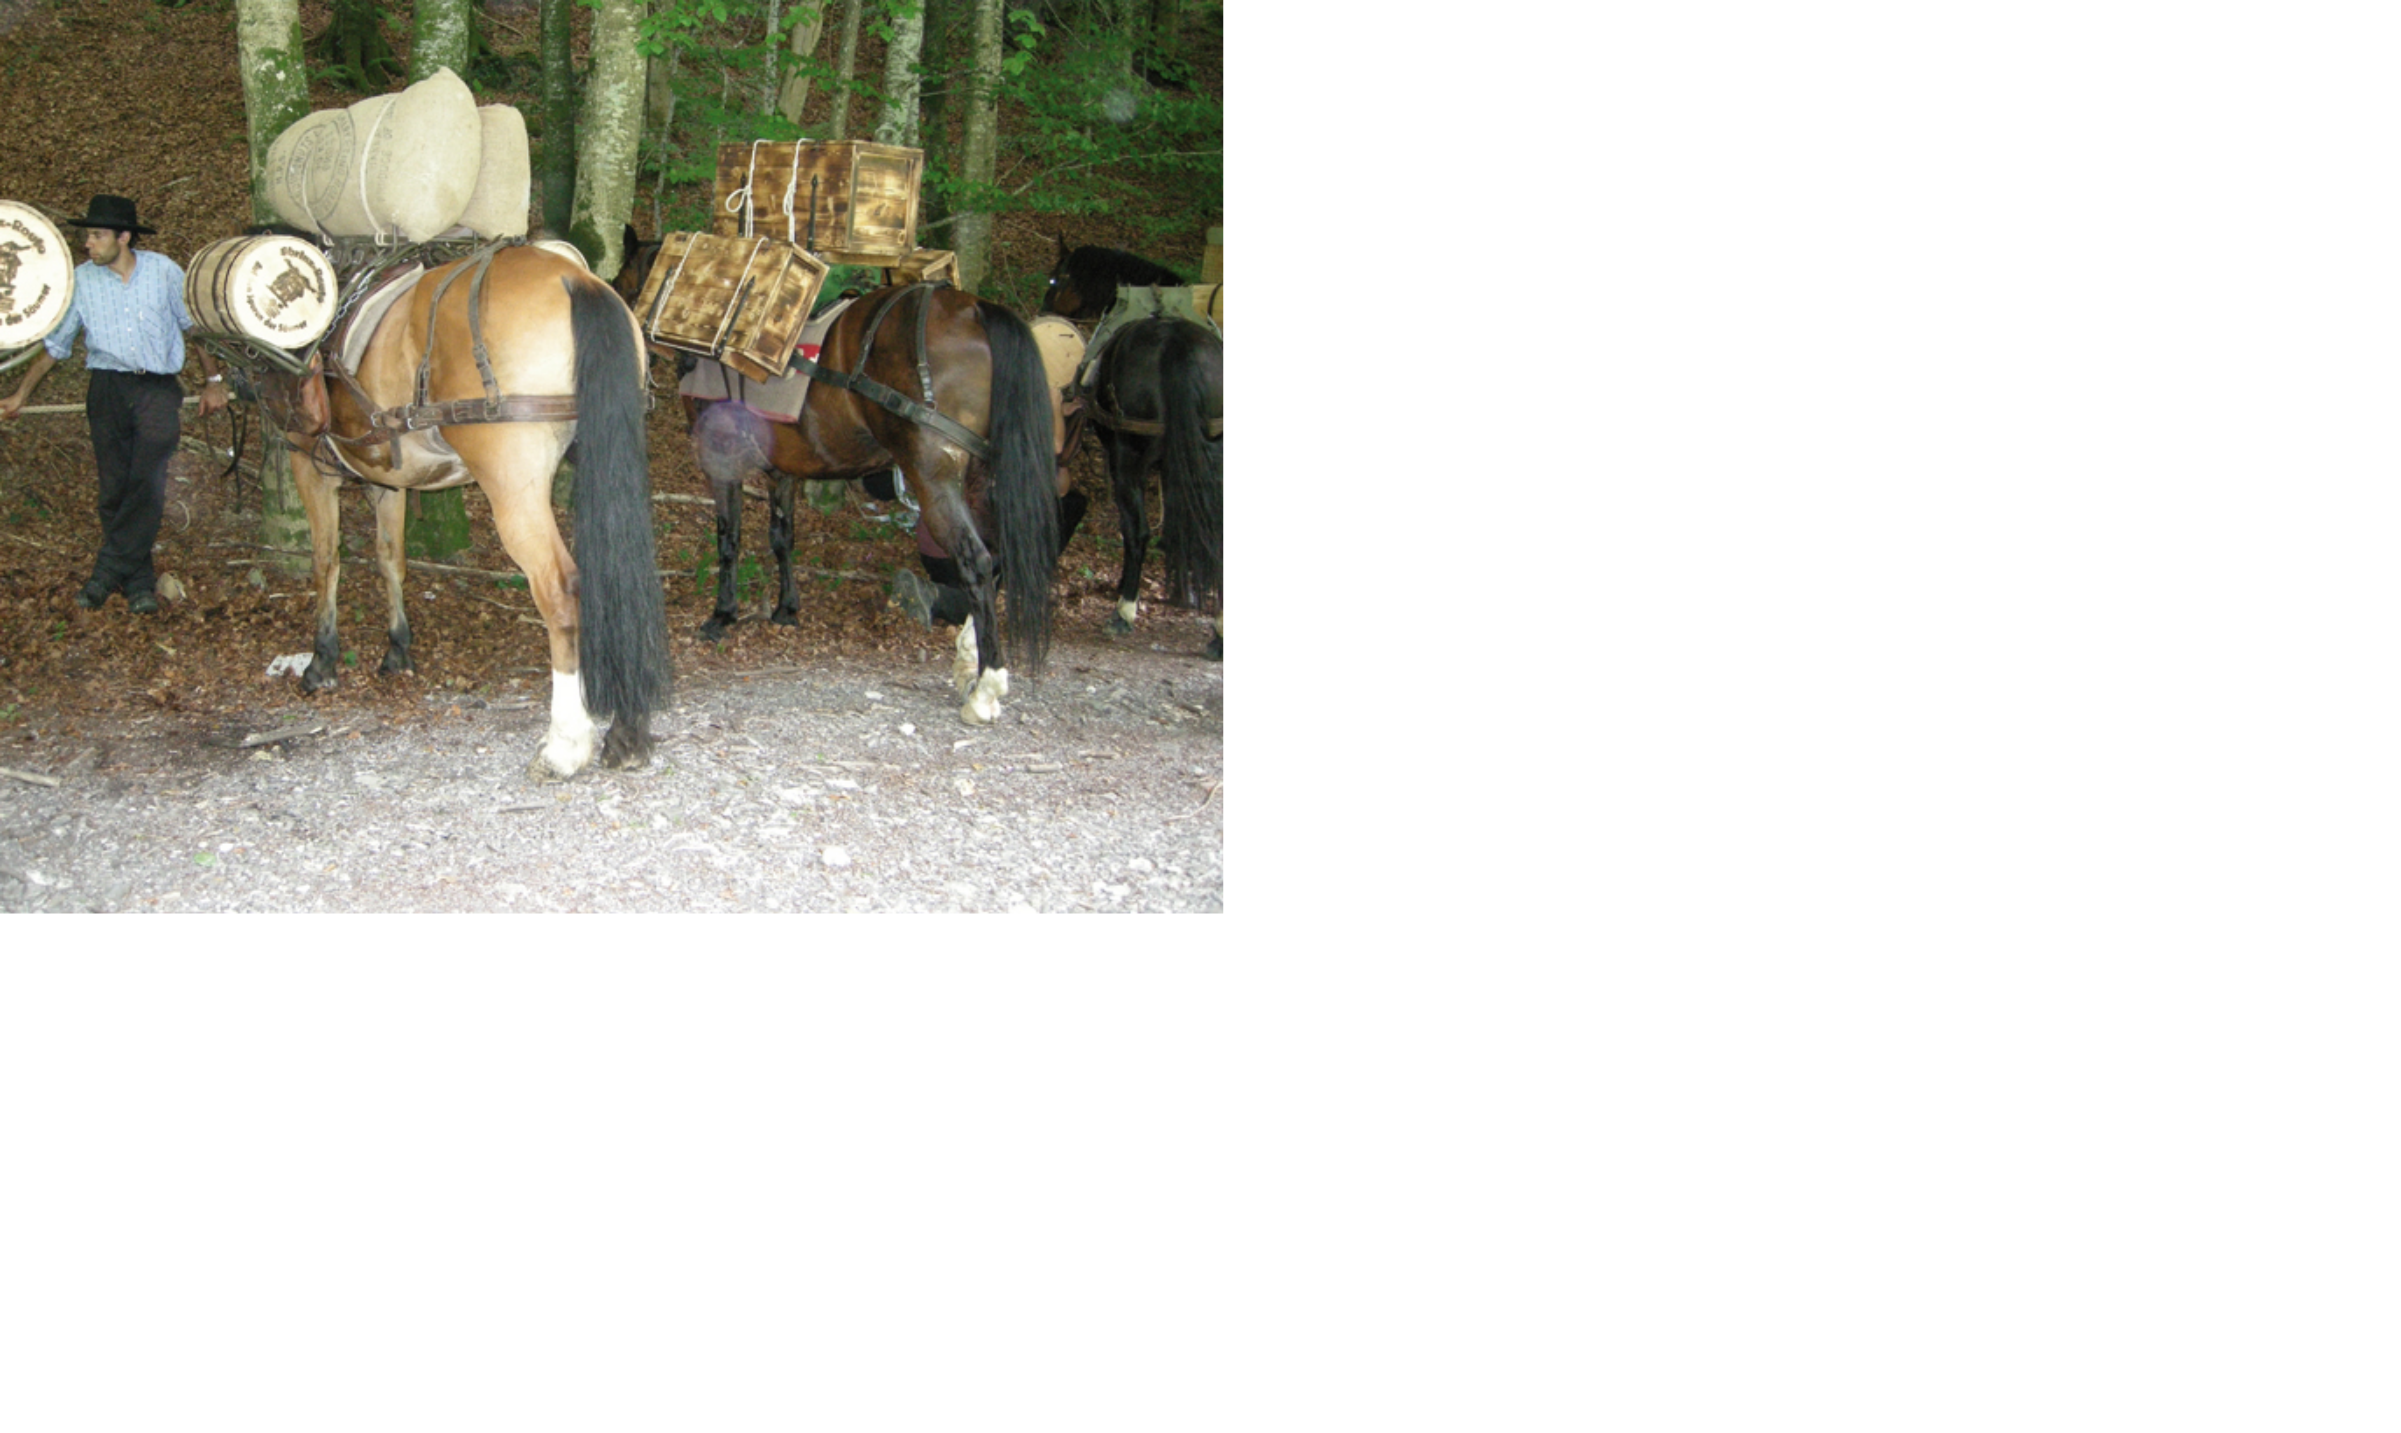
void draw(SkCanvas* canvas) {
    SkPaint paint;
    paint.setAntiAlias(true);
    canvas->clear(0xFFFFFFFF);
    canvas->drawImageRect(SkImages::DeferredFromEncodedData(SkData::MakeFromFileName("img1.png")), SkRect::MakeXYWH(0, 0, 1224, 914), SkSamplingOptions());
}
